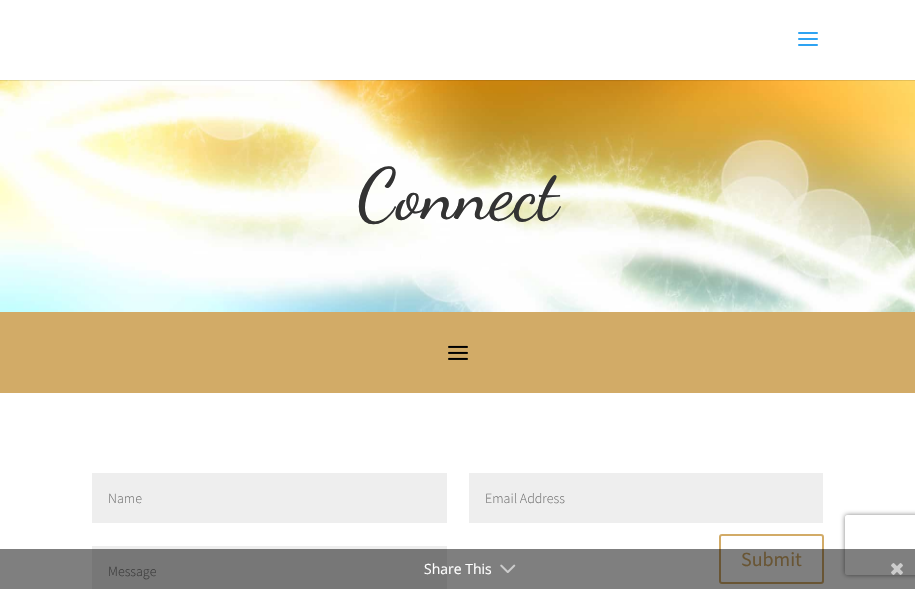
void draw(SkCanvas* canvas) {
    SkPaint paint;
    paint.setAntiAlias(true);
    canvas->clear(0xFFFFFFFF);
    canvas->drawImageRect(SkImages::DeferredFromEncodedData(SkData::MakeFromFileName("img2.png")), SkRect::MakeXYWH(0, 80, 915, 232), SkSamplingOptions());
    paint.setColor(0x1A000000);
    canvas->drawRect(SkRect::MakeXYWH(0, 80, 915, 1), paint);
    canvas->drawImageRect(SkImages::DeferredFromEncodedData(SkData::MakeFromFileName("img1.png")), SkRect::MakeXYWH(798, 32, 20, 14), SkSamplingOptions());
    SkFont font1(fontMgr->matchFamilyStyle("Dancing Script", SkFontStyle(500, SkFontStyle::kNormal_Width, SkFontStyle::kUpright_Slant)), 72);
    font1.setSubpixel(true);
    paint.setColor(0xFF333333);
    canvas->drawString("Connect", 357, 218, font1, paint);
    paint.setColor(0xFFD2AB67);
    canvas->drawRect(SkRect::MakeXYWH(0, 312, 915, 81), paint);
    canvas->drawImageRect(SkImages::DeferredFromEncodedData(SkData::MakeFromFileName("img3.png")), SkRect::MakeXYWH(448, 345, 20, 15), SkSamplingOptions());
    paint.setColor(0xFFEEEEEE);
    canvas->drawRect(SkRect::MakeXYWH(92, 473, 355, 50), paint);
    SkFont font2(fontMgr->matchFamilyStyle("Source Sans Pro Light", SkFontStyle(300, SkFontStyle::kNormal_Width, SkFontStyle::kUpright_Slant)), 14);
    font2.setSubpixel(true);
    paint.setColor(0xFF757575);
    canvas->drawString("Name", 108, 503, font2, paint);
    paint.setColor(0xFFEEEEEE);
    canvas->drawRect(SkRect::MakeXYWH(469, 473, 354, 50), paint);
    paint.setColor(0xFF757575);
    canvas->drawString("Email Address", 485, 503, font2, paint);
    paint.setStyle(SkPaint::kStroke_Style);
    paint.setStrokeWidth(2);
    paint.setColor(0xFFD2AB67);
    canvas->drawRoundRect(SkRect::MakeXYWH(720, 535, 103, 48), 2, 2, paint);
    SkFont font3(fontMgr->matchFamilyStyle("Source Sans Pro", SkFontStyle::Normal()), 20);
    font3.setSubpixel(true);
    paint.setStyle(SkPaint::kFill_Style);
    canvas->drawString("Submit", 741, 566, font3, paint);
    paint.setColor(0xFFEEEEEE);
    canvas->drawRect(SkRect::MakeXYWH(92, 546, 355, 43), paint);
    paint.setColor(0xFF757575);
    canvas->drawString("Message", 108, 576, font2, paint);
    canvas->save();
    canvas->clipPath(SkPathBuilder(SkPathFillType::kEvenOdd).moveTo(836, 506).lineTo(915, 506).lineTo(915, 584).lineTo(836, 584).close().moveTo(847, 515).lineTo(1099, 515).cubicTo(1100, 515, 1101, 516, 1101, 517).lineTo(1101, 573).cubicTo(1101, 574, 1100, 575, 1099, 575).lineTo(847, 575).cubicTo(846, 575, 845, 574, 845, 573).lineTo(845, 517).cubicTo(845, 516, 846, 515, 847, 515).close().detach(), true);
    paint.setColor(0xFF808080);
    paint.setMaskFilter(SkMaskFilter::MakeBlur(kNormal_SkBlurStyle, 2.5f));
    canvas->drawRoundRect(SkRect::MakeXYWH(845, 515, 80, 60), 2, 2, paint);
    paint.setMaskFilter(nullptr);
    canvas->restore();
    paint.setColor(0x80000000);
    canvas->drawRect(SkRect::MakeXYWH(0, 549, 915, 40), paint);
    SkFont font4(fontMgr->matchFamilyStyle("Open Sans", SkFontStyle::Normal()), 14);
    font4.setSubpixel(true);
    paint.setColor(0xFFFFFFFF);
    canvas->drawString("Share This", 424, 574, font4, paint);
    canvas->drawImageRect(SkImages::DeferredFromEncodedData(SkData::MakeFromFileName("img4.png")), SkRect::MakeXYWH(500, 564, 16, 9), SkSamplingOptions());
    canvas->drawImageRect(SkImages::DeferredFromEncodedData(SkData::MakeFromFileName("img5.png")), SkRect::MakeXYWH(891, 563, 12, 12), SkSamplingOptions());
}
